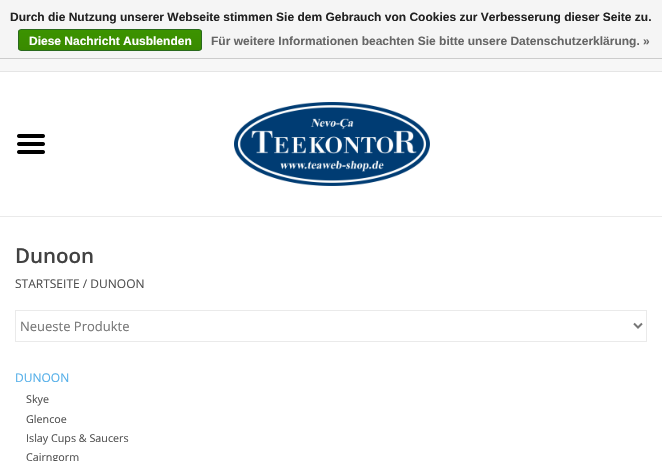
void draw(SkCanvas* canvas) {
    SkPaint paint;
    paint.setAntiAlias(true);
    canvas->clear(0xFFFFFFFF);
    paint.setColor(0xFFF5F5F5);
    canvas->drawRect(SkRect::MakeXYWH(0, 0, 662, 58), paint);
    paint.setColor(0xFFCCCCCC);
    canvas->drawRect(SkRect::MakeXYWH(0, 58, 662, 1), paint);
    SkFont font1(fontMgr->matchFamilyStyle("Liberation Sans", SkFontStyle::Bold()), 12);
    font1.setSubpixel(true);
    paint.setColor(0xFF222222);
    canvas->drawString("Durch die Nutzung unserer Webseite stimmen Sie dem Gebrauch von Cookies zur Verbesserung dieser Seite zu.", 10, 21, font1, paint);
    canvas->save();
    canvas->clipPath(SkPathBuilder().moveTo(21, 29).lineTo(199, 29).cubicTo(200.5f, 29, 202, 30.5f, 202, 32).lineTo(202, 48).cubicTo(202, 49.5f, 200.5f, 51, 199, 51).lineTo(21, 51).cubicTo(19.5f, 51, 18, 49.5f, 18, 48).lineTo(18, 32).cubicTo(18, 30.5f, 19.5f, 29, 21, 29).close().detach(), true);
    {
        const SkColor colors[] = {0xFF3C9300, 0xFF398A00};
        const float stops[] = {0, 1};
        const SkPoint ends[] = {{110, 30}, {110, 50}};
        paint.setShader(SkGradientShader::MakeLinear(ends, colors, stops, 2, SkTileMode::kClamp));
        paint.setAlpha(255);
    }
    canvas->drawRect(SkRect::MakeXYWH(18, 30, 184, 20), paint);
    canvas->restore();
    paint.setStyle(SkPaint::kStroke_Style);
    paint.setStrokeWidth(1);
    paint.setShader(nullptr);
    paint.setColor(0xFF29691D);
    canvas->drawRoundRect(SkRect::MakeXYWH(18.5f, 29.5f, 183, 21), 2.5f, 2.5f, paint);
    paint.setStyle(SkPaint::kFill_Style);
    paint.setColor(0xFFFFFFFF);
    canvas->drawString("Diese Nachricht Ausblenden", 29, 45, font1, paint);
    paint.setColor(0xFF666666);
    canvas->drawString("Für weitere Informationen beachten Sie bitte unsere Datenschutzerklärung. »", 211, 45, font1, paint);
    paint.setColor(0xFFF7F7F7);
    canvas->drawRect(SkRect::MakeXYWH(0, 59, 662, 12), paint);
    paint.setColor(0xFFE5E5E5);
    canvas->drawRect(SkRect::MakeXYWH(0, 71, 662, 1), paint);
    paint.setColor(0xFFEAEAEA);
    canvas->drawRect(SkRect::MakeXYWH(0, 216, 662, 1), paint);
    canvas->drawImageRect(SkImages::DeferredFromEncodedData(SkData::MakeFromFileName("img1.png")), SkRect::MakeXYWH(234, 102, 196, 84), SkSamplingOptions());
    canvas->drawImageRect(SkImages::DeferredFromEncodedData(SkData::MakeFromFileName("img2.png")), SkRect::MakeXYWH(17, 134, 28, 20), SkSamplingOptions());
    SkFont font2(fontMgr->matchFamilyStyle("Open Sans", SkFontStyle(600, SkFontStyle::kNormal_Width, SkFontStyle::kUpright_Slant)), 20.5f);
    font2.setSubpixel(true);
    paint.setColor(0xFF414141);
    canvas->drawString("Dunoon", 15, 263, font2, paint);
    SkFont font3(fontMgr->matchFamilyStyle("Open Sans", SkFontStyle::Normal()), 12);
    font3.setSubpixel(true);
    paint.setColor(0xFF505050);
    canvas->drawString("STARTSEITE / DUNOON", 15, 288, font3, paint);
    paint.setStyle(SkPaint::kStroke_Style);
    paint.setColor(0xFFEAEAEA);
    canvas->drawRect(SkRect::MakeXYWH(15.5f, 310.5f, 631, 31), paint);
    paint.setStrokeWidth(2);
    paint.setColor(0xFF777777);
    canvas->drawPath(SkPathBuilder().moveTo(634, 323.5f).lineTo(638, 327.5f).lineTo(642, 323.5f).detach(), paint);
    SkFont font4(fontMgr->matchFamilyStyle("Open Sans", SkFontStyle::Normal()), 13);
    font4.setSubpixel(true);
    paint.setStyle(SkPaint::kFill_Style);
    canvas->drawString("Neueste Produkte", 20, 331, font4, paint);
    paint.setColor(0xFF54AFE9);
    canvas->drawString("DUNOON", 15, 382, font3, paint);
    SkFont font5(fontMgr->matchFamilyStyle("Open Sans", SkFontStyle::Normal()), 10.75f);
    font5.setSubpixel(true);
    paint.setColor(0xFF505050);
    canvas->drawString("Skye", 26, 403, font5, paint);
    canvas->drawString("Glencoe", 26, 423, font5, paint);
    canvas->drawString("Islay Cups & Saucers", 26, 442, font5, paint);
    canvas->drawString("Cairngorm", 26, 461, font5, paint);
}
